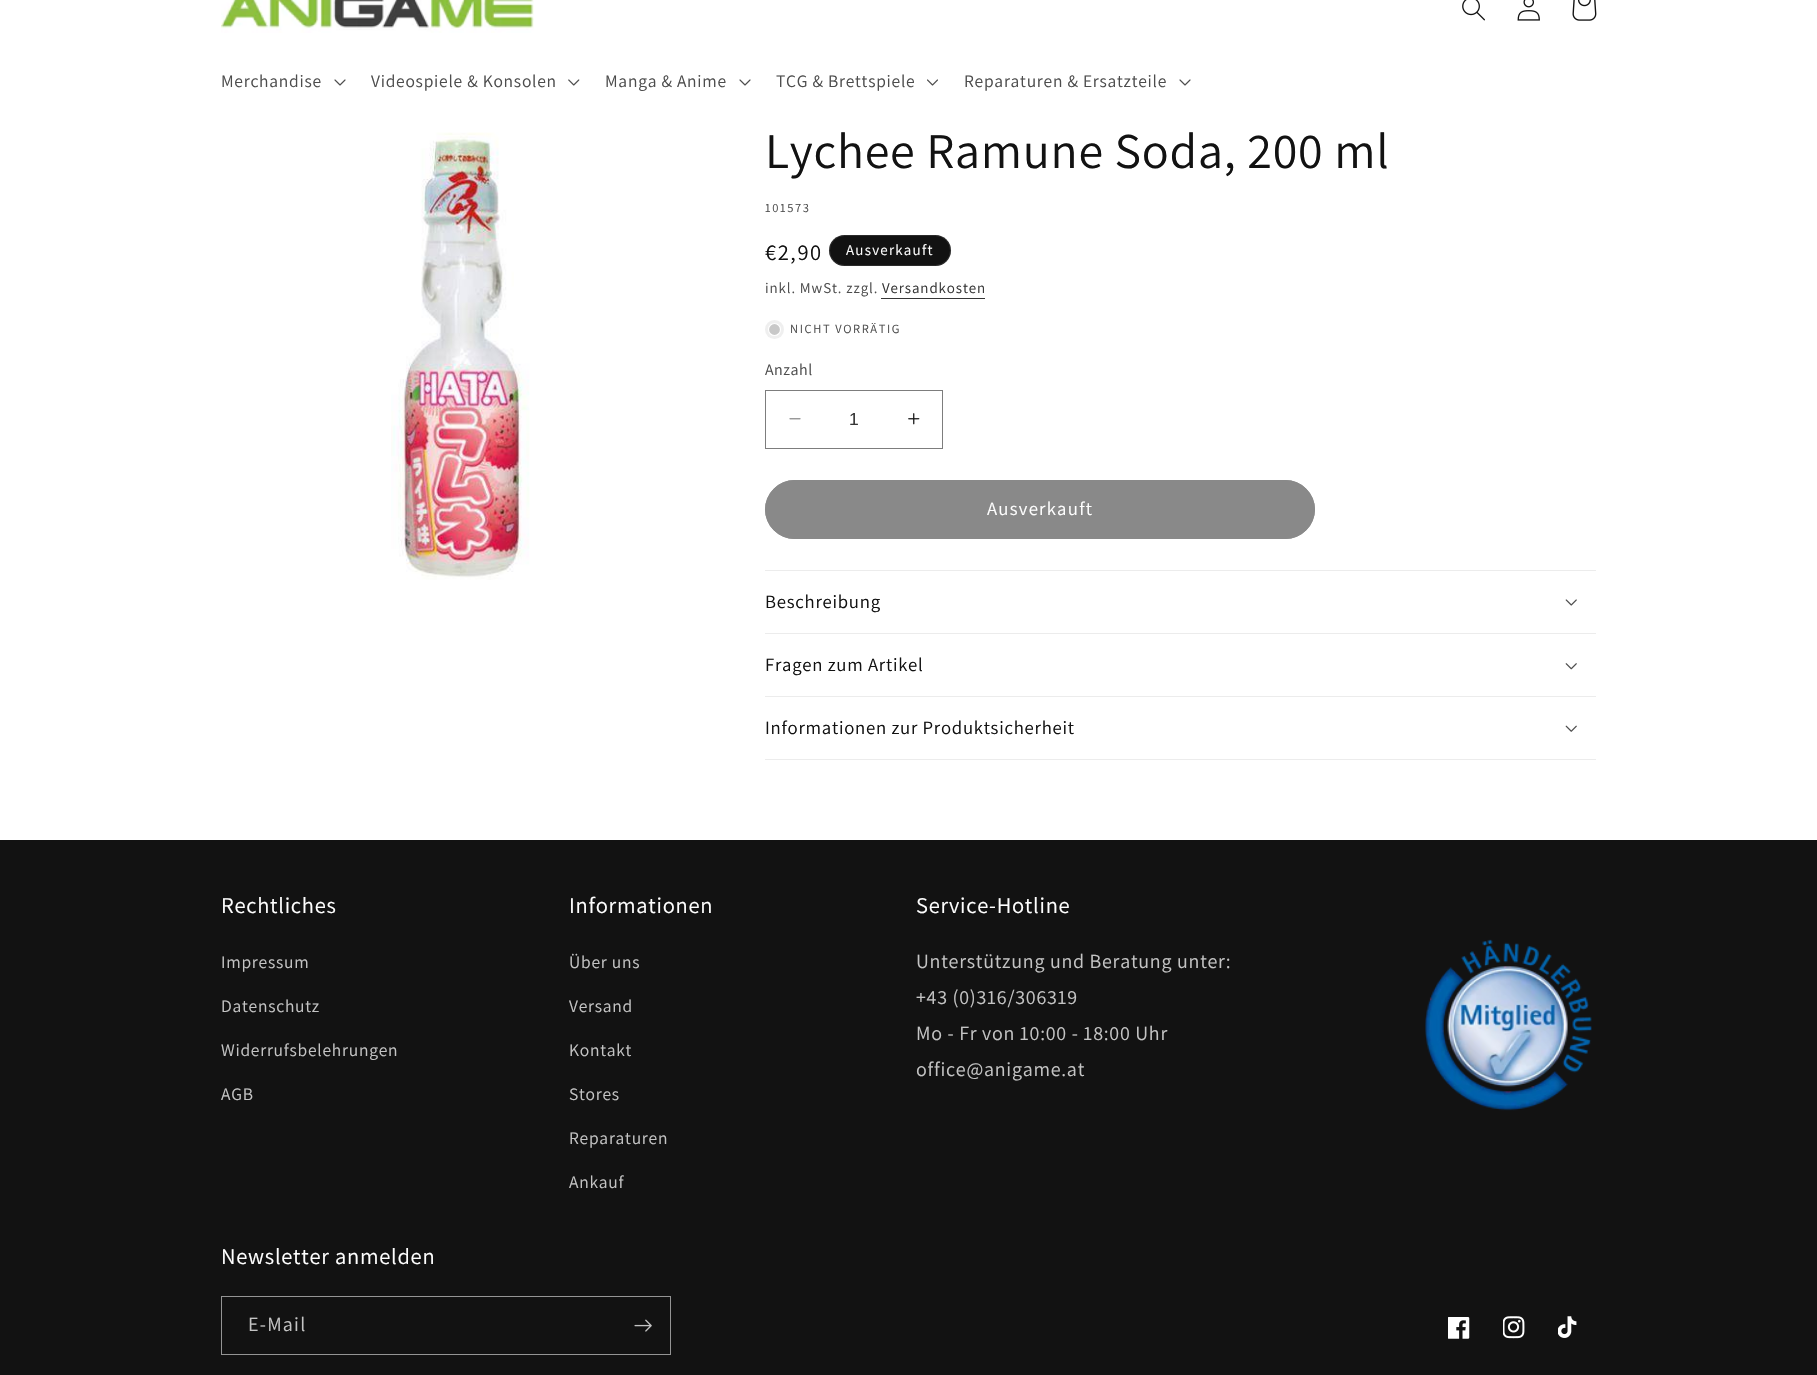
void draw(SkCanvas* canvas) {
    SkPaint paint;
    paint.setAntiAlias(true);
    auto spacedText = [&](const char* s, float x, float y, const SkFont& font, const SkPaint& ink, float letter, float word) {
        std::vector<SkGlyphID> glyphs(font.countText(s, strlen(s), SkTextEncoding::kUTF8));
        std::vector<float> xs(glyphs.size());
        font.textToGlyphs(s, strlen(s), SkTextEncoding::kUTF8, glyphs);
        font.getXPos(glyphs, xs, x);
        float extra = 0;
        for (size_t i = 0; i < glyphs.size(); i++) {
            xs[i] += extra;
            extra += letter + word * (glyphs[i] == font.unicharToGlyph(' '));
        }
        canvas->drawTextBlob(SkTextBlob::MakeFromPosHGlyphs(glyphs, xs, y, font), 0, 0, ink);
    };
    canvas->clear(0xFFFFFFFF);
    canvas->drawImageRect(SkImages::DeferredFromEncodedData(SkData::MakeFromFileName("img1.png")), SkRect::MakeXYWH(221, 0, 313, 33), SkSamplingOptions());
    canvas->drawImageRect(SkImages::DeferredFromEncodedData(SkData::MakeFromFileName("img2.png")), SkRect::MakeXYWH(1462, 0, 23, 21), SkSamplingOptions());
    canvas->drawImageRect(SkImages::DeferredFromEncodedData(SkData::MakeFromFileName("img3.png")), SkRect::MakeXYWH(1517, 0, 23, 21), SkSamplingOptions());
    canvas->drawImageRect(SkImages::DeferredFromEncodedData(SkData::MakeFromFileName("img4.png")), SkRect::MakeXYWH(1572, 0, 25, 21), SkSamplingOptions());
    SkFont font1(fontMgr->matchFamilyStyle("Assistant", SkFontStyle::Normal()), 17.5f);
    font1.setSubpixel(true);
    paint.setColor(0xFF4D4D4D);
    spacedText("Merchandise", 221, 87, font1, paint, 0.75f, 0);
    canvas->drawImageRect(SkImages::DeferredFromEncodedData(SkData::MakeFromFileName("img5.png")), SkRect::MakeXYWH(334, 79, 12, 7), SkSamplingOptions());
    spacedText("Videospiele & Konsolen", 371, 87, font1, paint, 0.75f, 0);
    canvas->drawImageRect(SkImages::DeferredFromEncodedData(SkData::MakeFromFileName("img6.png")), SkRect::MakeXYWH(568, 79, 12, 7), SkSamplingOptions());
    spacedText("Manga & Anime", 605, 87, font1, paint, 0.75f, 0);
    canvas->drawImageRect(SkImages::DeferredFromEncodedData(SkData::MakeFromFileName("img5.png")), SkRect::MakeXYWH(739, 79, 12, 7), SkSamplingOptions());
    spacedText("TCG & Brettspiele", 776, 87, font1, paint, 0.75f, 0);
    canvas->drawImageRect(SkImages::DeferredFromEncodedData(SkData::MakeFromFileName("img7.png")), SkRect::MakeXYWH(927, 79, 11, 7), SkSamplingOptions());
    spacedText("Reparaturen & Ersatzteile", 964, 87, font1, paint, 0.75f, 0);
    canvas->drawImageRect(SkImages::DeferredFromEncodedData(SkData::MakeFromFileName("img5.png")), SkRect::MakeXYWH(1179, 79, 12, 7), SkSamplingOptions());
    canvas->drawImageRect(SkImages::DeferredFromEncodedData(SkData::MakeFromFileName("img8.png")), SkRect::MakeXYWH(391, 132, 139, 448), SkSamplingOptions());
    SkFont font2(fontMgr->matchFamilyStyle("Assistant", SkFontStyle::Normal()), 50);
    font2.setSubpixel(true);
    paint.setColor(0xFF121212);
    spacedText("Lychee Ramune Soda, 200 ml", 765, 168, font2, paint, 0.75f, 0);
    SkFont font3(fontMgr->matchFamilyStyle("Assistant", SkFontStyle::Normal()), 12.5f);
    font3.setSubpixel(true);
    paint.setColor(0xFF4D4D4D);
    spacedText("101573", 765, 212, font3, paint, 1.6f, 0);
    SkFont font4(fontMgr->matchFamilyStyle("Assistant", SkFontStyle::Normal()), 22.5f);
    font4.setSubpixel(true);
    paint.setColor(0xFF121212);
    spacedText("€2,90", 765, 260, font4, paint, 1.6f, 0);
    canvas->drawRoundRect(SkRect::MakeXYWH(829, 235, 122, 31), 15.5f, 15.5f, paint);
    paint.setStyle(SkPaint::kStroke_Style);
    paint.setStrokeWidth(1);
    paint.setColor(0x1AFFFFFF);
    canvas->drawRoundRect(SkRect::MakeXYWH(829.5f, 235.5f, 121, 30), 15, 15, paint);
    SkFont font5(fontMgr->matchFamilyStyle("Assistant", SkFontStyle::Normal()), 15);
    font5.setSubpixel(true);
    paint.setStyle(SkPaint::kFill_Style);
    paint.setColor(0xFFFFFFFF);
    spacedText("Ausverkauft", 846, 255, font5, paint, 1.25f, 0);
    paint.setColor(0xFF4D4D4D);
    spacedText("inkl. MwSt. zzgl.", 765, 293, font5, paint, 0.9f, 0);
    paint.setColor(0xFF363636);
    spacedText("Versandkosten", 882, 293, font5, paint, 0.9f, 0);
    canvas->drawRect(SkRect::MakeXYWH(881, 298, 104, 1), paint);
    paint.setColor(0xFFEFEFEF);
    canvas->drawCircle(774.5f, 329.5f, 9.5f, paint);
    paint.setColor(0xFFC8C8C8);
    canvas->drawCircle(774.5f, 329.5f, 6, paint);
    paint.setStyle(SkPaint::kStroke_Style);
    paint.setStrokeWidth(1.2f);
    paint.setColor(0xFFFFFFFF);
    canvas->drawCircle(774.5f, 329.5f, 6, paint);
    paint.setStyle(SkPaint::kFill_Style);
    paint.setColor(0xFF4D4D4D);
    spacedText("NICHT VORRÄTIG", 790, 333, font3, paint, 1.6f, 0);
    SkFont font6(fontMgr->matchFamilyStyle("Assistant", SkFontStyle::Normal()), 16);
    font6.setSubpixel(true);
    spacedText("Anzahl", 765, 375, font6, paint, 0.5f, 0);
    canvas->drawImageRect(SkImages::DeferredFromEncodedData(SkData::MakeFromFileName("img9.png")), SkRect::MakeXYWH(789, 418, 12, 2), SkSamplingOptions());
    canvas->drawImageRect(SkImages::DeferredFromEncodedData(SkData::MakeFromFileName("img10.png")), SkRect::MakeXYWH(908, 413, 12, 12), SkSamplingOptions());
    paint.setStyle(SkPaint::kStroke_Style);
    paint.setStrokeWidth(1);
    paint.setColor(0xFF7D7D7D);
    canvas->drawRect(SkRect::MakeXYWH(765.5f, 390.5f, 177, 58), paint);
    SkFont font7(fontMgr->matchFamilyStyle("Liberation Sans", SkFontStyle::Normal()), 17.5f);
    font7.setSubpixel(true);
    paint.setStyle(SkPaint::kFill_Style);
    paint.setColor(0xFF363636);
    canvas->drawString("1", 849, 425, font7, paint);
    paint.setColor(0xFF898989);
    canvas->drawRoundRect(SkRect::MakeXYWH(765, 480, 550, 59), 29.5f, 29.5f, paint);
    paint.setStyle(SkPaint::kStroke_Style);
    canvas->drawRoundRect(SkRect::MakeXYWH(765.5f, 480.5f, 549, 58), 29, 29, paint);
    SkFont font8(fontMgr->matchFamilyStyle("Assistant", SkFontStyle::Normal()), 18.75f);
    font8.setSubpixel(true);
    paint.setStyle(SkPaint::kFill_Style);
    paint.setColor(0xFFFFFFFF);
    spacedText("Ausverkauft", 987, 515, font8, paint, 1.25f, 0);
    paint.setColor(0xFFECECEC);
    canvas->drawRect(SkRect::MakeXYWH(765, 570, 831, 1), paint);
    canvas->drawRect(SkRect::MakeXYWH(765, 633, 831, 1), paint);
    paint.setColor(0xFF121212);
    spacedText("Beschreibung", 765, 608, font8, paint, 0.75f, 0);
    canvas->drawImageRect(SkImages::DeferredFromEncodedData(SkData::MakeFromFileName("img11.png")), SkRect::MakeXYWH(1565, 599, 12, 7), SkSamplingOptions());
    paint.setColor(0xFFECECEC);
    canvas->drawRect(SkRect::MakeXYWH(765, 696, 831, 1), paint);
    paint.setColor(0xFF121212);
    spacedText("Fragen zum Artikel", 765, 671, font8, paint, 0.75f, 0);
    canvas->drawImageRect(SkImages::DeferredFromEncodedData(SkData::MakeFromFileName("img12.png")), SkRect::MakeXYWH(1565, 663, 12, 7), SkSamplingOptions());
    paint.setColor(0xFFECECEC);
    canvas->drawRect(SkRect::MakeXYWH(765, 759, 831, 1), paint);
    paint.setColor(0xFF121212);
    spacedText("Informationen zur Produktsicherheit", 765, 734, font8, paint, 0.75f, 0);
    canvas->drawImageRect(SkImages::DeferredFromEncodedData(SkData::MakeFromFileName("img13.png")), SkRect::MakeXYWH(1565, 725, 12, 7), SkSamplingOptions());
    canvas->drawRect(SkRect::MakeXYWH(0, 840, 1817, 535), paint);
    paint.setColor(0xFFFFFFFF);
    spacedText("Rechtliches", 221, 913, font4, paint, 0.75f, 0);
    paint.setColor(0xFFC4C4C4);
    spacedText("Impressum", 221, 968, font1, paint, 0.75f, 0);
    spacedText("Datenschutz", 221, 1012, font1, paint, 0.75f, 0);
    spacedText("Widerrufsbelehrungen", 221, 1056, font1, paint, 0.75f, 0);
    spacedText("AGB", 221, 1100, font1, paint, 0.75f, 0);
    paint.setColor(0xFFFFFFFF);
    spacedText("Informationen", 569, 913, font4, paint, 0.75f, 0);
    paint.setColor(0xFFC4C4C4);
    spacedText("Über uns", 569, 968, font1, paint, 0.75f, 0);
    spacedText("Versand", 569, 1012, font1, paint, 0.75f, 0);
    spacedText("Kontakt", 569, 1056, font1, paint, 0.75f, 0);
    spacedText("Stores", 569, 1100, font1, paint, 0.75f, 0);
    spacedText("Reparaturen", 569, 1144, font1, paint, 0.75f, 0);
    spacedText("Ankauf", 569, 1188, font1, paint, 0.75f, 0);
    paint.setColor(0xFFFFFFFF);
    spacedText("Service-Hotline", 916, 913, font4, paint, 0.75f, 0);
    SkFont font9(fontMgr->matchFamilyStyle("Assistant", SkFontStyle::Normal()), 20);
    font9.setSubpixel(true);
    paint.setColor(0xFFC4C4C4);
    spacedText("Unterstützung und Beratung unter:", 916, 968, font9, paint, 0.75f, 0);
    spacedText("+43 (0)316/306319", 916, 1004, font9, paint, 0.75f, 0);
    spacedText("Mo - Fr von 10:00 - 18:00 Uhr", 916, 1040, font9, paint, 0.75f, 0);
    spacedText("office@anigame.at", 916, 1076, font9, paint, 0.75f, 0);
    canvas->drawImageRect(SkImages::DeferredFromEncodedData(SkData::MakeFromFileName("img14.png")), SkRect::MakeXYWH(1425, 939, 167, 172), SkSamplingOptions());
    paint.setColor(0xFFFFFFFF);
    spacedText("Newsletter anmelden", 221, 1264, font4, paint, 0.75f, 0);
    paint.setStyle(SkPaint::kStroke_Style);
    paint.setColor(0xFF949494);
    canvas->drawRect(SkRect::MakeXYWH(221.5f, 1296.5f, 449, 58), paint);
    paint.setStyle(SkPaint::kFill_Style);
    paint.setColor(0xFFC4C4C4);
    spacedText("E-Mail", 248, 1331, font9, paint, 1.25f, 0);
    canvas->drawImageRect(SkImages::DeferredFromEncodedData(SkData::MakeFromFileName("img15.png")), SkRect::MakeXYWH(634, 1319, 18, 13), SkSamplingOptions());
    canvas->drawImageRect(SkImages::DeferredFromEncodedData(SkData::MakeFromFileName("img16.png")), SkRect::MakeXYWH(1448, 1317, 22, 22), SkSamplingOptions());
    canvas->drawImageRect(SkImages::DeferredFromEncodedData(SkData::MakeFromFileName("img17.png")), SkRect::MakeXYWH(1503, 1316, 22, 23), SkSamplingOptions());
    canvas->drawImageRect(SkImages::DeferredFromEncodedData(SkData::MakeFromFileName("img18.png")), SkRect::MakeXYWH(1558, 1316, 19, 22), SkSamplingOptions());
}
